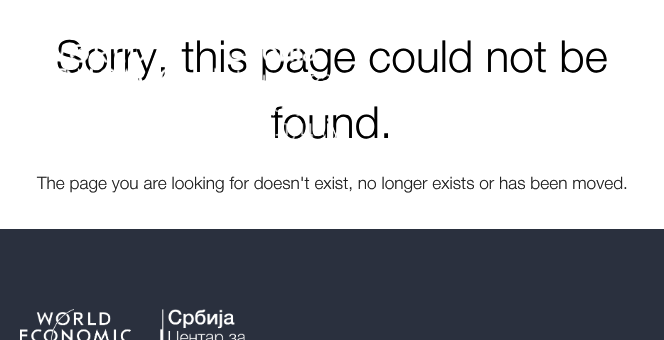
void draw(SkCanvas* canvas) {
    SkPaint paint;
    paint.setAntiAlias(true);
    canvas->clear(0xFFFFFFFF);
    SkFont font1(fontMgr->matchFamilyStyle("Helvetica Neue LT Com", SkFontStyle(300, SkFontStyle::kNormal_Width, SkFontStyle::kUpright_Slant)), 44.25f);
    font1.setSubpixel(true);
    paint.setColor(0xFF000000);
    canvas->drawString("Sorry, this page could not be", 56, 72, font1, paint);
    canvas->drawString("found.", 271, 138, font1, paint);
    SkFont font2(fontMgr->matchFamilyStyle("Helvetica Neue LT Com", SkFontStyle(300, SkFontStyle::kNormal_Width, SkFontStyle::kUpright_Slant)), 17.25f);
    font2.setSubpixel(true);
    paint.setColor(0xFF222222);
    canvas->drawString("The page you are looking for doesn't exist, no longer exists or has been moved.", 37, 189, font2, paint);
    canvas->drawImageRect(SkImages::DeferredFromEncodedData(SkData::MakeFromFileName("img1.png")), SkRect::MakeXYWH(58, 43, 292, 96), SkSamplingOptions());
    paint.setColor(0xFF2A303E);
    canvas->drawRect(SkRect::MakeXYWH(0, 229, 664, 111), paint);
    canvas->drawImageRect(SkImages::DeferredFromEncodedData(SkData::MakeFromFileName("img2.png")), SkRect::MakeXYWH(20, 309, 225, 31), SkSamplingOptions());
}
